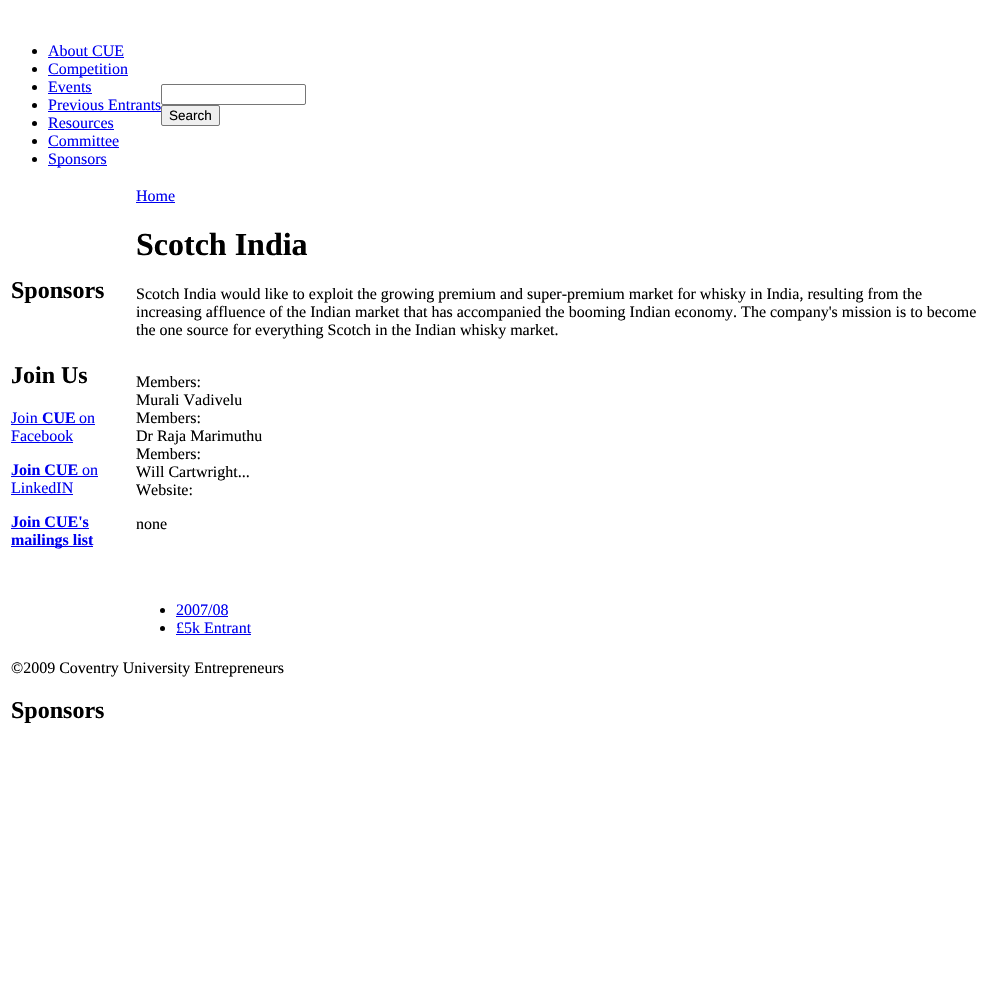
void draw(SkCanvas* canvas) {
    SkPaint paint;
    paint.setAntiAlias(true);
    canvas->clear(0xFFFFFFFF);
    paint.setColor(0xFF000000);
    canvas->drawCircle(34.5f, 51.5f, 2.5f, paint);
    SkFont font1(fontMgr->matchFamilyStyle("Liberation Serif", SkFontStyle::Normal()), 16);
    font1.setSubpixel(true);
    paint.setColor(0xFF0000EE);
    canvas->drawString("About CUE", 48, 56, font1, paint);
    canvas->drawRect(SkRect::MakeXYWH(48, 57, 76, 1), paint);
    paint.setColor(0xFF000000);
    canvas->drawCircle(34.5f, 69.5f, 2.5f, paint);
    paint.setColor(0xFF0000EE);
    canvas->drawRect(SkRect::MakeXYWH(48, 75, 80, 1), paint);
    canvas->drawString("Competition", 48, 74, font1, paint);
    paint.setColor(0xFF000000);
    canvas->drawCircle(34.5f, 87.5f, 2.5f, paint);
    paint.setColor(0xFF0000EE);
    canvas->drawString("Events", 48, 92, font1, paint);
    canvas->drawRect(SkRect::MakeXYWH(48, 93, 44, 1), paint);
    paint.setColor(0xFF000000);
    canvas->drawCircle(34.5f, 105.5f, 2.5f, paint);
    paint.setColor(0xFF0000EE);
    canvas->drawString("Previous Entrants", 48, 110, font1, paint);
    canvas->drawRect(SkRect::MakeXYWH(48, 111, 113, 1), paint);
    paint.setColor(0xFF000000);
    canvas->drawCircle(34.5f, 123.5f, 2.5f, paint);
    paint.setColor(0xFF0000EE);
    canvas->drawString("Resources", 48, 128, font1, paint);
    canvas->drawRect(SkRect::MakeXYWH(48, 129, 66, 1), paint);
    paint.setColor(0xFF000000);
    canvas->drawCircle(34.5f, 141.5f, 2.5f, paint);
    paint.setColor(0xFF0000EE);
    canvas->drawString("Committee", 48, 146, font1, paint);
    canvas->drawRect(SkRect::MakeXYWH(48, 147, 71, 1), paint);
    paint.setColor(0xFF000000);
    canvas->drawCircle(34.5f, 159.5f, 2.5f, paint);
    paint.setColor(0xFF0000EE);
    canvas->drawRect(SkRect::MakeXYWH(48, 165, 59, 1), paint);
    canvas->drawString("Sponsors", 48, 164, font1, paint);
    paint.setStyle(SkPaint::kStroke_Style);
    paint.setStrokeWidth(1);
    paint.setColor(0xFF767676);
    canvas->drawRoundRect(SkRect::MakeXYWH(161.5f, 84.5f, 144, 20), 1.5f, 1.5f, paint);
    paint.setStyle(SkPaint::kFill_Style);
    paint.setColor(0xFFEFEFEF);
    canvas->drawRoundRect(SkRect::MakeXYWH(161.5f, 105.5f, 58, 20), 1.5f, 1.5f, paint);
    paint.setStyle(SkPaint::kStroke_Style);
    paint.setColor(0xFF767676);
    canvas->drawRoundRect(SkRect::MakeXYWH(161.5f, 105.5f, 58, 20), 1.5f, 1.5f, paint);
    SkFont font2(fontMgr->matchFamilyStyle("Liberation Sans", SkFontStyle::Normal()), 13.5f);
    font2.setSubpixel(true);
    paint.setStyle(SkPaint::kFill_Style);
    paint.setColor(0xFF000000);
    canvas->drawString("Search", 169, 120, font2, paint);
    SkFont font3(fontMgr->matchFamilyStyle("Liberation Serif", SkFontStyle::Bold()), 24);
    font3.setSubpixel(true);
    canvas->drawString("Sponsors", 11, 298, font3, paint);
    canvas->drawString("Join Us", 11, 383, font3, paint);
    paint.setColor(0xFF0000EE);
    canvas->drawString("Join", 11, 423, font1, paint);
    SkFont font4(fontMgr->matchFamilyStyle("Liberation Serif", SkFontStyle::Bold()), 16);
    font4.setSubpixel(true);
    canvas->drawString("CUE", 42, 423, font4, paint);
    canvas->drawString("on", 79, 423, font1, paint);
    canvas->drawRect(SkRect::MakeXYWH(11, 424, 84, 1), paint);
    canvas->drawString("Facebook", 11, 441, font1, paint);
    canvas->drawRect(SkRect::MakeXYWH(11, 442, 62, 1), paint);
    canvas->drawString("Join CUE", 11, 475, font4, paint);
    canvas->drawString("on", 82, 475, font1, paint);
    canvas->drawRect(SkRect::MakeXYWH(11, 476, 87, 1), paint);
    canvas->drawString("LinkedIN", 11, 493, font1, paint);
    canvas->drawRect(SkRect::MakeXYWH(11, 494, 62, 1), paint);
    canvas->drawString("Join CUE's", 11, 527, font4, paint);
    canvas->drawRect(SkRect::MakeXYWH(11, 528, 78, 1), paint);
    canvas->drawRect(SkRect::MakeXYWH(11, 546, 82, 1), paint);
    canvas->drawString("mailings list", 11, 545, font4, paint);
    canvas->drawString("Home", 136, 201, font1, paint);
    canvas->drawRect(SkRect::MakeXYWH(136, 202, 39, 1), paint);
    SkFont font5(fontMgr->matchFamilyStyle("Liberation Serif", SkFontStyle::Bold()), 32);
    font5.setSubpixel(true);
    paint.setColor(0xFF000000);
    canvas->drawString("Scotch India", 136, 255, font5, paint);
    canvas->drawString("Scotch India would like to exploit the growing premium and super-premium market for whisky in India, resulting from the", 136, 299, font1, paint);
    canvas->drawString("increasing affluence of the Indian market that has accompanied the booming Indian economy. The company's mission is to become", 136, 317, font1, paint);
    canvas->drawString("the one source for everything Scotch in the Indian whisky market.", 136, 335, font1, paint);
    canvas->drawString("Members:", 136, 387, font1, paint);
    canvas->drawString("Murali Vadivelu", 136, 405, font1, paint);
    canvas->drawString("Members:", 136, 423, font1, paint);
    canvas->drawString("Dr Raja Marimuthu", 136, 441, font1, paint);
    canvas->drawString("Members:", 136, 459, font1, paint);
    canvas->drawString("Will Cartwright...", 136, 477, font1, paint);
    canvas->drawString("Website:", 136, 495, font1, paint);
    canvas->drawString("none", 136, 529, font1, paint);
    canvas->drawCircle(162.5f, 610.5f, 2.5f, paint);
    paint.setColor(0xFF0000EE);
    canvas->drawString("2007/08", 176, 615, font1, paint);
    canvas->drawRect(SkRect::MakeXYWH(176, 616, 52, 1), paint);
    paint.setColor(0xFF000000);
    canvas->drawCircle(162.5f, 628.5f, 2.5f, paint);
    paint.setColor(0xFF0000EE);
    canvas->drawString("£5k Entrant", 176, 633, font1, paint);
    canvas->drawRect(SkRect::MakeXYWH(176, 634, 75, 1), paint);
    paint.setColor(0xFF000000);
    canvas->drawString("©2009 Coventry University Entrepreneurs", 11, 673, font1, paint);
    canvas->drawString("Sponsors", 11, 718, font3, paint);
}
